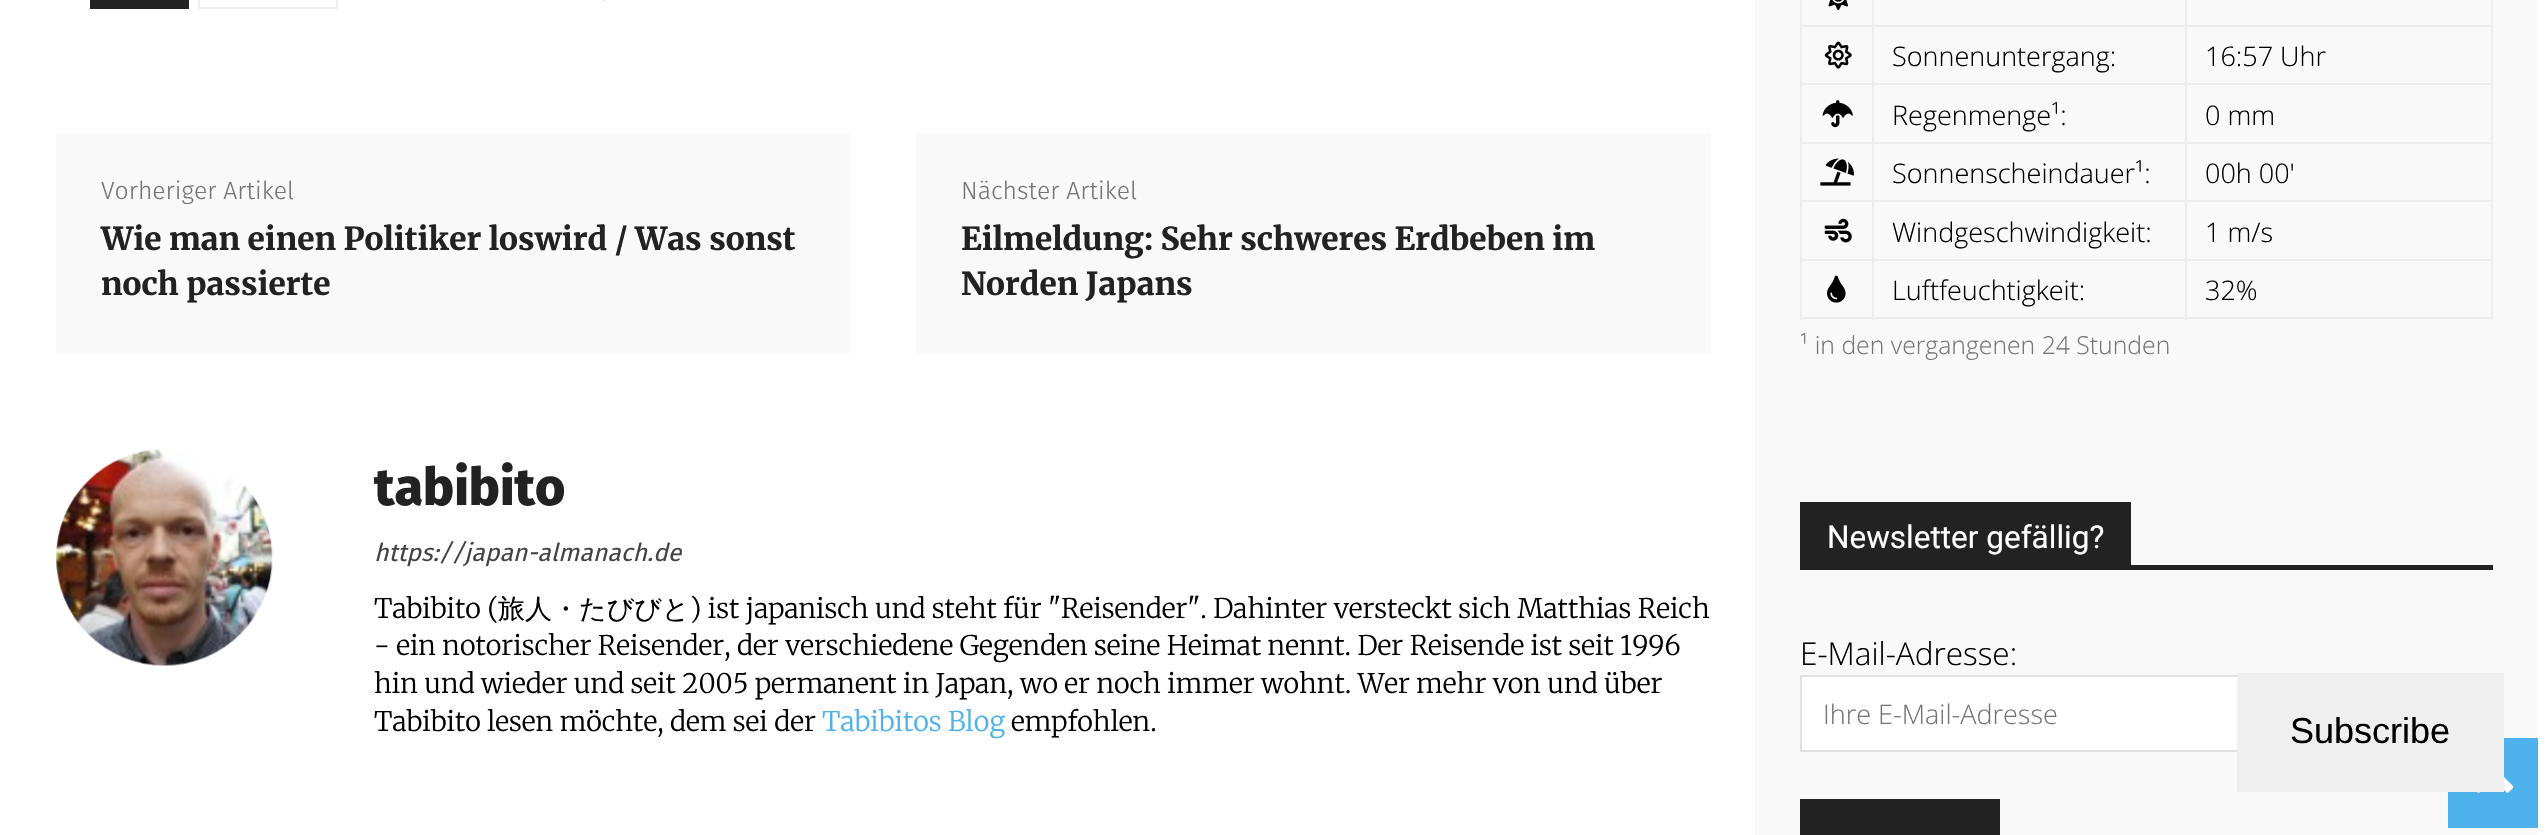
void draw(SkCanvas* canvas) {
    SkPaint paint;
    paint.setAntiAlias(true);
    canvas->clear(0xFFFFFFFF);
    paint.setColor(0xFF222222);
    canvas->drawRect(SkRect::MakeXYWH(90, 0, 99, 9), paint);
    paint.setStyle(SkPaint::kStroke_Style);
    paint.setStrokeWidth(2);
    paint.setColor(0xFFEDEDED);
    canvas->drawRect(SkRect::MakeXYWH(199, -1, 138, 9), paint);
    paint.setStyle(SkPaint::kFill_Style);
    paint.setColor(0xFFEBEBEB);
    canvas->drawRect(SkRect::MakeXYWH(603, 0, 2, 2), paint);
    paint.setColor(0xFFFAFAFA);
    canvas->drawRect(SkRect::MakeXYWH(1093, 0, 1, 1), paint);
    paint.setColor(0xFFF9F9F9);
    canvas->drawRect(SkRect::MakeXYWH(56, 133, 795, 220), paint);
    SkFont font1(fontMgr->matchFamilyStyle("Fira Sans", SkFontStyle(300, SkFontStyle::kNormal_Width, SkFontStyle::kUpright_Slant)), 24.75f);
    font1.setSubpixel(true);
    paint.setColor(0xFF747474);
    canvas->drawString("Vorheriger Artikel", 101, 199, font1, paint);
    SkFont font2(fontMgr->matchFamilyStyle("Merriweather", SkFontStyle(800, SkFontStyle::kNormal_Width, SkFontStyle::kUpright_Slant)), 31.5f);
    font2.setSubpixel(true);
    paint.setColor(0xFF222222);
    canvas->drawString("Wie man einen Politiker loswird / Was sonst", 101, 250, font2, paint);
    canvas->drawString("noch passierte", 101, 295, font2, paint);
    paint.setColor(0xFFF9F9F9);
    canvas->drawRect(SkRect::MakeXYWH(916, 133, 794, 220), paint);
    paint.setColor(0xFF747474);
    canvas->drawString("Nächster Artikel", 961, 199, font1, paint);
    paint.setColor(0xFF222222);
    canvas->drawString("Eilmeldung: Sehr schweres Erdbeben im", 961, 250, font2, paint);
    canvas->drawString("Norden Japans", 961, 295, font2, paint);
    canvas->drawImageRect(SkImages::DeferredFromEncodedData(SkData::MakeFromFileName("img1.png")), SkRect::MakeXYWH(56, 449, 217, 217), SkSamplingOptions());
    SkFont font3(fontMgr->matchFamilyStyle("Fira Sans", SkFontStyle(800, SkFontStyle::kNormal_Width, SkFontStyle::kUpright_Slant)), 52);
    font3.setSubpixel(true);
    canvas->drawString("tabibito", 374, 505, font3, paint);
    SkFont font4(fontMgr->matchFamilyStyle("Fira Sans", SkFontStyle::Italic()), 24.75f);
    font4.setSubpixel(true);
    paint.setColor(0xFF444444);
    canvas->drawString("https://japan-almanach.de", 374, 561, font4, paint);
    SkFont font5(fontMgr->matchFamilyStyle("Merriweather", SkFontStyle(300, SkFontStyle::kNormal_Width, SkFontStyle::kUpright_Slant)), 27);
    font5.setSubpixel(true);
    paint.setColor(0xFF000000);
    canvas->drawString("Tabibito (", 374, 618, font5, paint);
    SkFont font6(fontMgr->matchFamilyStyle("WenQuanYi Zen Hei", SkFontStyle(500, SkFontStyle::kNormal_Width, SkFontStyle::kUpright_Slant)), 27);
    font6.setSubpixel(true);
    canvas->drawString("旅人・たびびと", 498, 618, font6, paint);
    canvas->drawString(") ist japanisch und steht für \"Reisender\". Dahinter versteckt sich Matthias Reich", 690, 618, font5, paint);
    canvas->drawString("- ein notorischer Reisender, der verschiedene Gegenden seine Heimat nennt. Der Reisende ist seit 1996", 374, 655, font5, paint);
    canvas->drawString("hin und wieder und seit 2005 permanent in Japan, wo er noch immer wohnt. Wer mehr von und über", 374, 693, font5, paint);
    canvas->drawString("Tabibito lesen möchte, dem sei der", 374, 731, font5, paint);
    paint.setColor(0xFF4DB2EC);
    canvas->drawString("Tabibitos Blog", 822, 731, font5, paint);
    paint.setColor(0xFF000000);
    canvas->drawString("empfohlen.", 1011, 731, font5, paint);
    paint.setColor(0xFFF9F9F9);
    canvas->drawRect(SkRect::MakeXYWH(1755, 0, 783, 835), paint);
    canvas->drawImageRect(SkImages::DeferredFromEncodedData(SkData::MakeFromFileName("img2.png")), SkRect::MakeXYWH(1828, 0, 21, 11), SkSamplingOptions());
    paint.setColor(0xFFEDEDED);
    canvas->drawRect(SkRect::MakeXYWH(2185, 25, 308, 2), paint);
    canvas->drawRect(SkRect::MakeXYWH(2185, 83, 308, 2), paint);
    canvas->drawRect(SkRect::MakeXYWH(2185, 142, 308, 2), paint);
    canvas->drawRect(SkRect::MakeXYWH(2185, 200, 308, 2), paint);
    canvas->drawRect(SkRect::MakeXYWH(2185, 259, 308, 2), paint);
    canvas->drawRect(SkRect::MakeXYWH(2491, 259, 2, 61), paint);
    canvas->drawRect(SkRect::MakeXYWH(2185, 317, 308, 2), paint);
    canvas->drawRect(SkRect::MakeXYWH(2185, 259, 2, 61), paint);
    canvas->drawRect(SkRect::MakeXYWH(1872, 259, 315, 2), paint);
    canvas->drawRect(SkRect::MakeXYWH(2185, 200, 2, 61), paint);
    canvas->drawRect(SkRect::MakeXYWH(1872, 200, 315, 2), paint);
    canvas->drawRect(SkRect::MakeXYWH(2185, 142, 2, 61), paint);
    canvas->drawRect(SkRect::MakeXYWH(1872, 142, 315, 2), paint);
    canvas->drawRect(SkRect::MakeXYWH(2185, 83, 2, 61), paint);
    canvas->drawRect(SkRect::MakeXYWH(1872, 83, 315, 2), paint);
    canvas->drawRect(SkRect::MakeXYWH(2185, 25, 2, 61), paint);
    canvas->drawRect(SkRect::MakeXYWH(1872, 25, 315, 2), paint);
    canvas->drawRect(SkRect::MakeXYWH(1872, 317, 315, 2), paint);
    canvas->drawRect(SkRect::MakeXYWH(1872, 259, 2, 61), paint);
    canvas->drawRect(SkRect::MakeXYWH(1800, 259, 74, 2), paint);
    canvas->drawRect(SkRect::MakeXYWH(1872, 200, 2, 61), paint);
    canvas->drawRect(SkRect::MakeXYWH(1800, 200, 74, 2), paint);
    canvas->drawRect(SkRect::MakeXYWH(1872, 142, 2, 61), paint);
    canvas->drawRect(SkRect::MakeXYWH(1800, 142, 74, 2), paint);
    canvas->drawRect(SkRect::MakeXYWH(1872, 83, 2, 61), paint);
    canvas->drawRect(SkRect::MakeXYWH(1800, 83, 74, 2), paint);
    canvas->drawRect(SkRect::MakeXYWH(1872, 25, 2, 61), paint);
    canvas->drawRect(SkRect::MakeXYWH(1800, 25, 74, 2), paint);
    canvas->drawRect(SkRect::MakeXYWH(1872, 0, 2, 27), paint);
    canvas->drawRect(SkRect::MakeXYWH(2185, 0, 2, 27), paint);
    canvas->drawRect(SkRect::MakeXYWH(1800, 317, 74, 2), paint);
    canvas->drawRect(SkRect::MakeXYWH(1800, 259, 2, 61), paint);
    canvas->drawRect(SkRect::MakeXYWH(1800, 200, 2, 61), paint);
    canvas->drawRect(SkRect::MakeXYWH(1800, 142, 2, 61), paint);
    canvas->drawRect(SkRect::MakeXYWH(1800, 83, 2, 61), paint);
    canvas->drawRect(SkRect::MakeXYWH(1800, 0, 2, 86), paint);
    canvas->drawImageRect(SkImages::DeferredFromEncodedData(SkData::MakeFromFileName("img3.png")), SkRect::MakeXYWH(1824, 41, 28, 28), SkSamplingOptions());
    SkFont font7(fontMgr->matchFamilyStyle("Open Sans", SkFontStyle(300, SkFontStyle::kNormal_Width, SkFontStyle::kUpright_Slant)), 27);
    font7.setSubpixel(true);
    paint.setColor(0xFF000000);
    canvas->drawString("Sonnenuntergang:", 1892, 66, font7, paint);
    paint.setColor(0xFFEDEDED);
    canvas->drawRect(SkRect::MakeXYWH(2491, 200, 2, 61), paint);
    canvas->drawRect(SkRect::MakeXYWH(2491, 142, 2, 61), paint);
    canvas->drawRect(SkRect::MakeXYWH(2491, 83, 2, 61), paint);
    canvas->drawRect(SkRect::MakeXYWH(2491, 0, 2, 86), paint);
    paint.setColor(0xFF000000);
    canvas->drawString("16:57 Uhr", 2205, 66, font7, paint);
    canvas->drawImageRect(SkImages::DeferredFromEncodedData(SkData::MakeFromFileName("img4.png")), SkRect::MakeXYWH(1822, 100, 31, 28), SkSamplingOptions());
    canvas->drawString("Regenmenge¹:", 1892, 125, font7, paint);
    canvas->drawString("0 mm", 2205, 125, font7, paint);
    canvas->drawImageRect(SkImages::DeferredFromEncodedData(SkData::MakeFromFileName("img5.png")), SkRect::MakeXYWH(1820, 158, 34, 28), SkSamplingOptions());
    canvas->drawString("Sonnenscheindauer¹:", 1892, 183, font7, paint);
    canvas->drawString("00h 00'", 2205, 183, font7, paint);
    canvas->drawImageRect(SkImages::DeferredFromEncodedData(SkData::MakeFromFileName("img6.png")), SkRect::MakeXYWH(1824, 218, 28, 25), SkSamplingOptions());
    canvas->drawString("Windgeschwindigkeit:", 1892, 242, font7, paint);
    canvas->drawString("1 m/s", 2205, 242, font7, paint);
    canvas->drawImageRect(SkImages::DeferredFromEncodedData(SkData::MakeFromFileName("img7.png")), SkRect::MakeXYWH(1827, 275, 19, 28), SkSamplingOptions());
    canvas->drawString("Luftfeuchtigkeit:", 1892, 300, font7, paint);
    canvas->drawString("32%", 2205, 300, font7, paint);
    SkFont font8(fontMgr->matchFamilyStyle("Open Sans", SkFontStyle(300, SkFontStyle::kNormal_Width, SkFontStyle::kUpright_Slant)), 24.75f);
    font8.setSubpixel(true);
    paint.setColor(0xFF747474);
    canvas->drawString("¹ in den vergangenen 24 Stunden", 1800, 354, font8, paint);
    paint.setColor(0xFF222222);
    canvas->drawRect(SkRect::MakeXYWH(1800, 565, 693, 5), paint);
    canvas->drawRect(SkRect::MakeXYWH(1800, 502, 331, 63), paint);
    SkFont font9(fontMgr->matchFamilyStyle("Roboto", SkFontStyle::Normal()), 31.5f);
    font9.setSubpixel(true);
    paint.setColor(0xFFFFFFFF);
    canvas->drawString("Newsletter gefällig?", 1827, 548, font9, paint);
    SkFont font10(fontMgr->matchFamilyStyle("Open Sans", SkFontStyle(300, SkFontStyle::kNormal_Width, SkFontStyle::kUpright_Slant)), 31.5f);
    font10.setSubpixel(true);
    paint.setColor(0xFF000000);
    canvas->drawString("E-Mail-Adresse:", 1800, 665, font10, paint);
    paint.setColor(0xFFFFFFFF);
    canvas->drawRect(SkRect::MakeXYWH(1802, 677, 435, 73), paint);
    paint.setStyle(SkPaint::kStroke_Style);
    paint.setColor(0xFFE1E1E1);
    canvas->drawRect(SkRect::MakeXYWH(1801, 676, 691, 75), paint);
    paint.setStyle(SkPaint::kFill_Style);
    paint.setColor(0xFF747474);
    canvas->drawString("Ihre E-Mail-Adresse", 1823, 724, font7, paint);
    paint.setColor(0xFF222222);
    canvas->drawRect(SkRect::MakeXYWH(1800, 799, 200, 36), paint);
    paint.setColor(0xFF4DB2EC);
    canvas->drawRect(SkRect::MakeXYWH(2448, 738, 90, 90), paint);
    canvas->drawImageRect(SkImages::DeferredFromEncodedData(SkData::MakeFromFileName("img8.png")), SkRect::MakeXYWH(2477, 777, 37, 16), SkSamplingOptions());
    paint.setColor(0xFFEFEFEF);
    canvas->drawRect(SkRect::MakeXYWH(2237, 673, 267, 119), paint);
    SkFont font11(fontMgr->matchFamilyStyle("Liberation Sans", SkFontStyle::Normal()), 36);
    font11.setSubpixel(true);
    paint.setColor(0xFF000000);
    canvas->drawString("Subscribe", 2290, 743, font11, paint);
}
